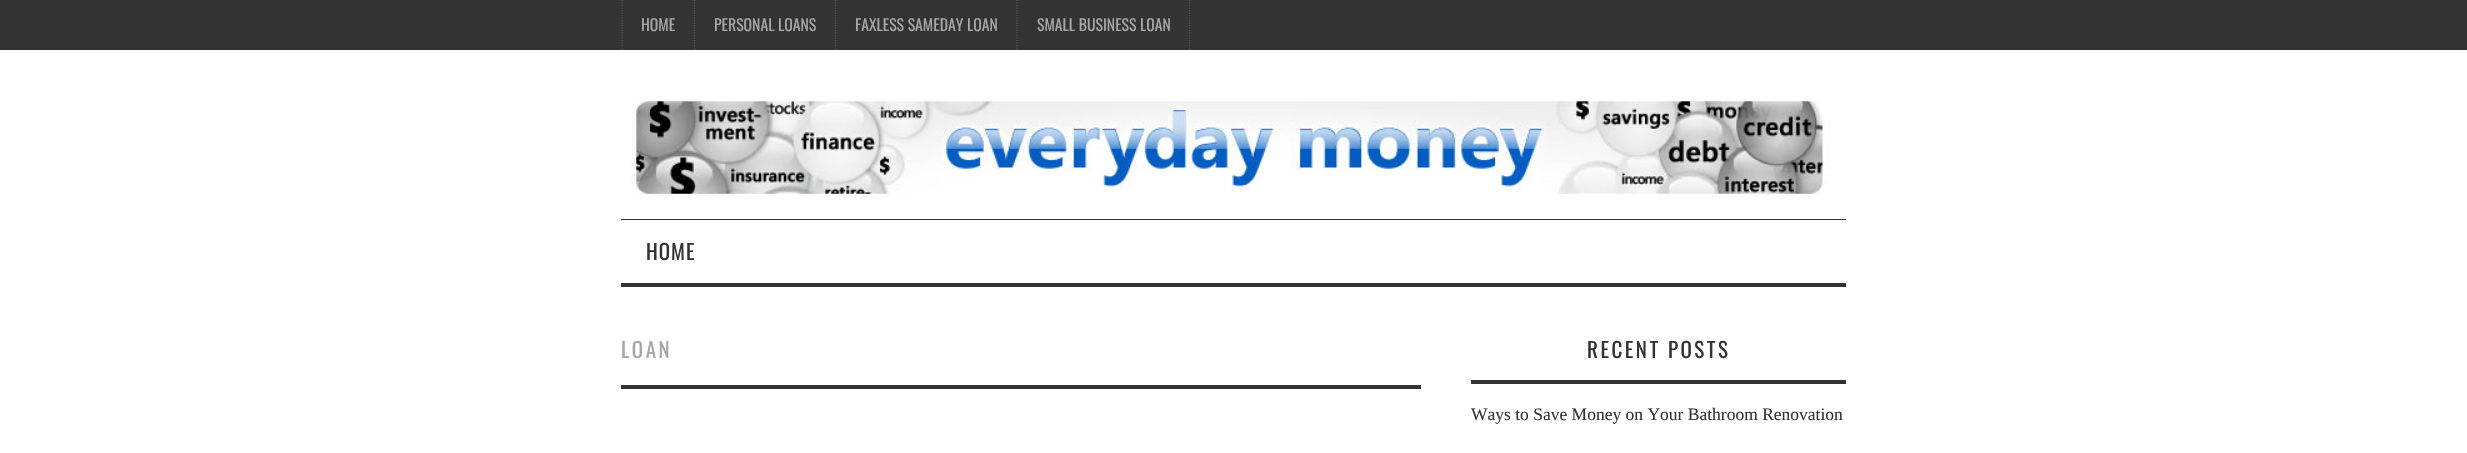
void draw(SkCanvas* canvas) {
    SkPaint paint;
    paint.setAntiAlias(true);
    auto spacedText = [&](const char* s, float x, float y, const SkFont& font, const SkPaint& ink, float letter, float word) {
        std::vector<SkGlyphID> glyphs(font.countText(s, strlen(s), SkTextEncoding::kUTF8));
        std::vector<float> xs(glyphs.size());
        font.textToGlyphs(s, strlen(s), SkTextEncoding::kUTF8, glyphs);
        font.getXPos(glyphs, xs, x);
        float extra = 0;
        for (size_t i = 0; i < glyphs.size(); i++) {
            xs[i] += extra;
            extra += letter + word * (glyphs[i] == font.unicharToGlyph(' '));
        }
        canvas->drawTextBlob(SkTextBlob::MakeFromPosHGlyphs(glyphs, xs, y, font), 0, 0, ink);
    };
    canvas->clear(0xFFFFFFFF);
    paint.setColor(0xFF333333);
    canvas->drawRect(SkRect::MakeXYWH(0, 0, 2467, 50), paint);
    paint.setStyle(SkPaint::kStroke_Style);
    paint.setStrokeWidth(1.2f);
    paint.setColor(0xFF565656);
    paint.setPathEffect(SkDashPathEffect::Make({{1.25f, 1.25f}}, 0));
    canvas->drawPath(SkPathBuilder().moveTo(622, 0).lineTo(622, 50).detach(), paint);
    paint.setPathEffect(nullptr);
    paint.setPathEffect(SkDashPathEffect::Make({{1.25f, 1.25f}}, 0));
    canvas->drawPath(SkPathBuilder().moveTo(694.5f, 0).lineTo(694.5f, 50).detach(), paint);
    paint.setPathEffect(nullptr);
    SkFont font1(fontMgr->matchFamilyStyle("Oswald", SkFontStyle::Normal()), 15.75f);
    font1.setSubpixel(true);
    paint.setStyle(SkPaint::kFill_Style);
    paint.setColor(0xFFA6A6A6);
    canvas->drawString("HOME", 641, 31, font1, paint);
    paint.setStyle(SkPaint::kStroke_Style);
    paint.setColor(0xFF565656);
    paint.setPathEffect(SkDashPathEffect::Make({{1.25f, 1.25f}}, 0));
    canvas->drawPath(SkPathBuilder().moveTo(835.5f, 0).lineTo(835.5f, 50).detach(), paint);
    paint.setPathEffect(nullptr);
    paint.setStyle(SkPaint::kFill_Style);
    paint.setColor(0xFFA6A6A6);
    canvas->drawString("PERSONAL LOANS", 714, 31, font1, paint);
    paint.setStyle(SkPaint::kStroke_Style);
    paint.setColor(0xFF565656);
    paint.setPathEffect(SkDashPathEffect::Make({{1.25f, 1.25f}}, 0));
    canvas->drawPath(SkPathBuilder().moveTo(1017, 0).lineTo(1017, 50).detach(), paint);
    paint.setPathEffect(nullptr);
    paint.setStyle(SkPaint::kFill_Style);
    paint.setColor(0xFFA6A6A6);
    canvas->drawString("FAXLESS SAMEDAY LOAN", 855, 31, font1, paint);
    paint.setStyle(SkPaint::kStroke_Style);
    paint.setColor(0xFF565656);
    paint.setPathEffect(SkDashPathEffect::Make({{1.25f, 1.25f}}, 0));
    canvas->drawPath(SkPathBuilder().moveTo(1189.5f, 0).lineTo(1189.5f, 50).detach(), paint);
    paint.setPathEffect(nullptr);
    paint.setStyle(SkPaint::kFill_Style);
    paint.setColor(0xFFA6A6A6);
    canvas->drawString("SMALL BUSINESS LOAN", 1037, 31, font1, paint);
    canvas->drawImageRect(SkImages::DeferredFromEncodedData(SkData::MakeFromFileName("img1.png")), SkRect::MakeXYWH(631, 100, 1200, 94), SkSamplingOptions());
    paint.setColor(0xFF333333);
    canvas->drawRect(SkRect::MakeXYWH(621, 219, 1225, 1), paint);
    canvas->drawRect(SkRect::MakeXYWH(621, 283, 1225, 4), paint);
    SkFont font2(fontMgr->matchFamilyStyle("Oswald", SkFontStyle::Normal()), 21);
    font2.setSubpixel(true);
    spacedText("HOME", 646, 260, font2, paint, 1, 0);
    canvas->drawRect(SkRect::MakeXYWH(621, 385, 800, 4), paint);
    paint.setColor(0xFFA6A6A6);
    spacedText("LOAN", 621, 358, font2, paint, 2.5f, 0);
    paint.setColor(0xFF333333);
    canvas->drawRect(SkRect::MakeXYWH(1471, 380, 375, 4), paint);
    spacedText("RECENT POSTS", 1587, 358, font2, paint, 2.5f, 0);
    SkFont font3(fontMgr->matchFamilyStyle("Liberation Serif", SkFontStyle::Normal()), 17.5f);
    font3.setSubpixel(true);
    canvas->drawString("Ways to Save Money on Your Bathroom Renovation", 1471, 420, font3, paint);
}
